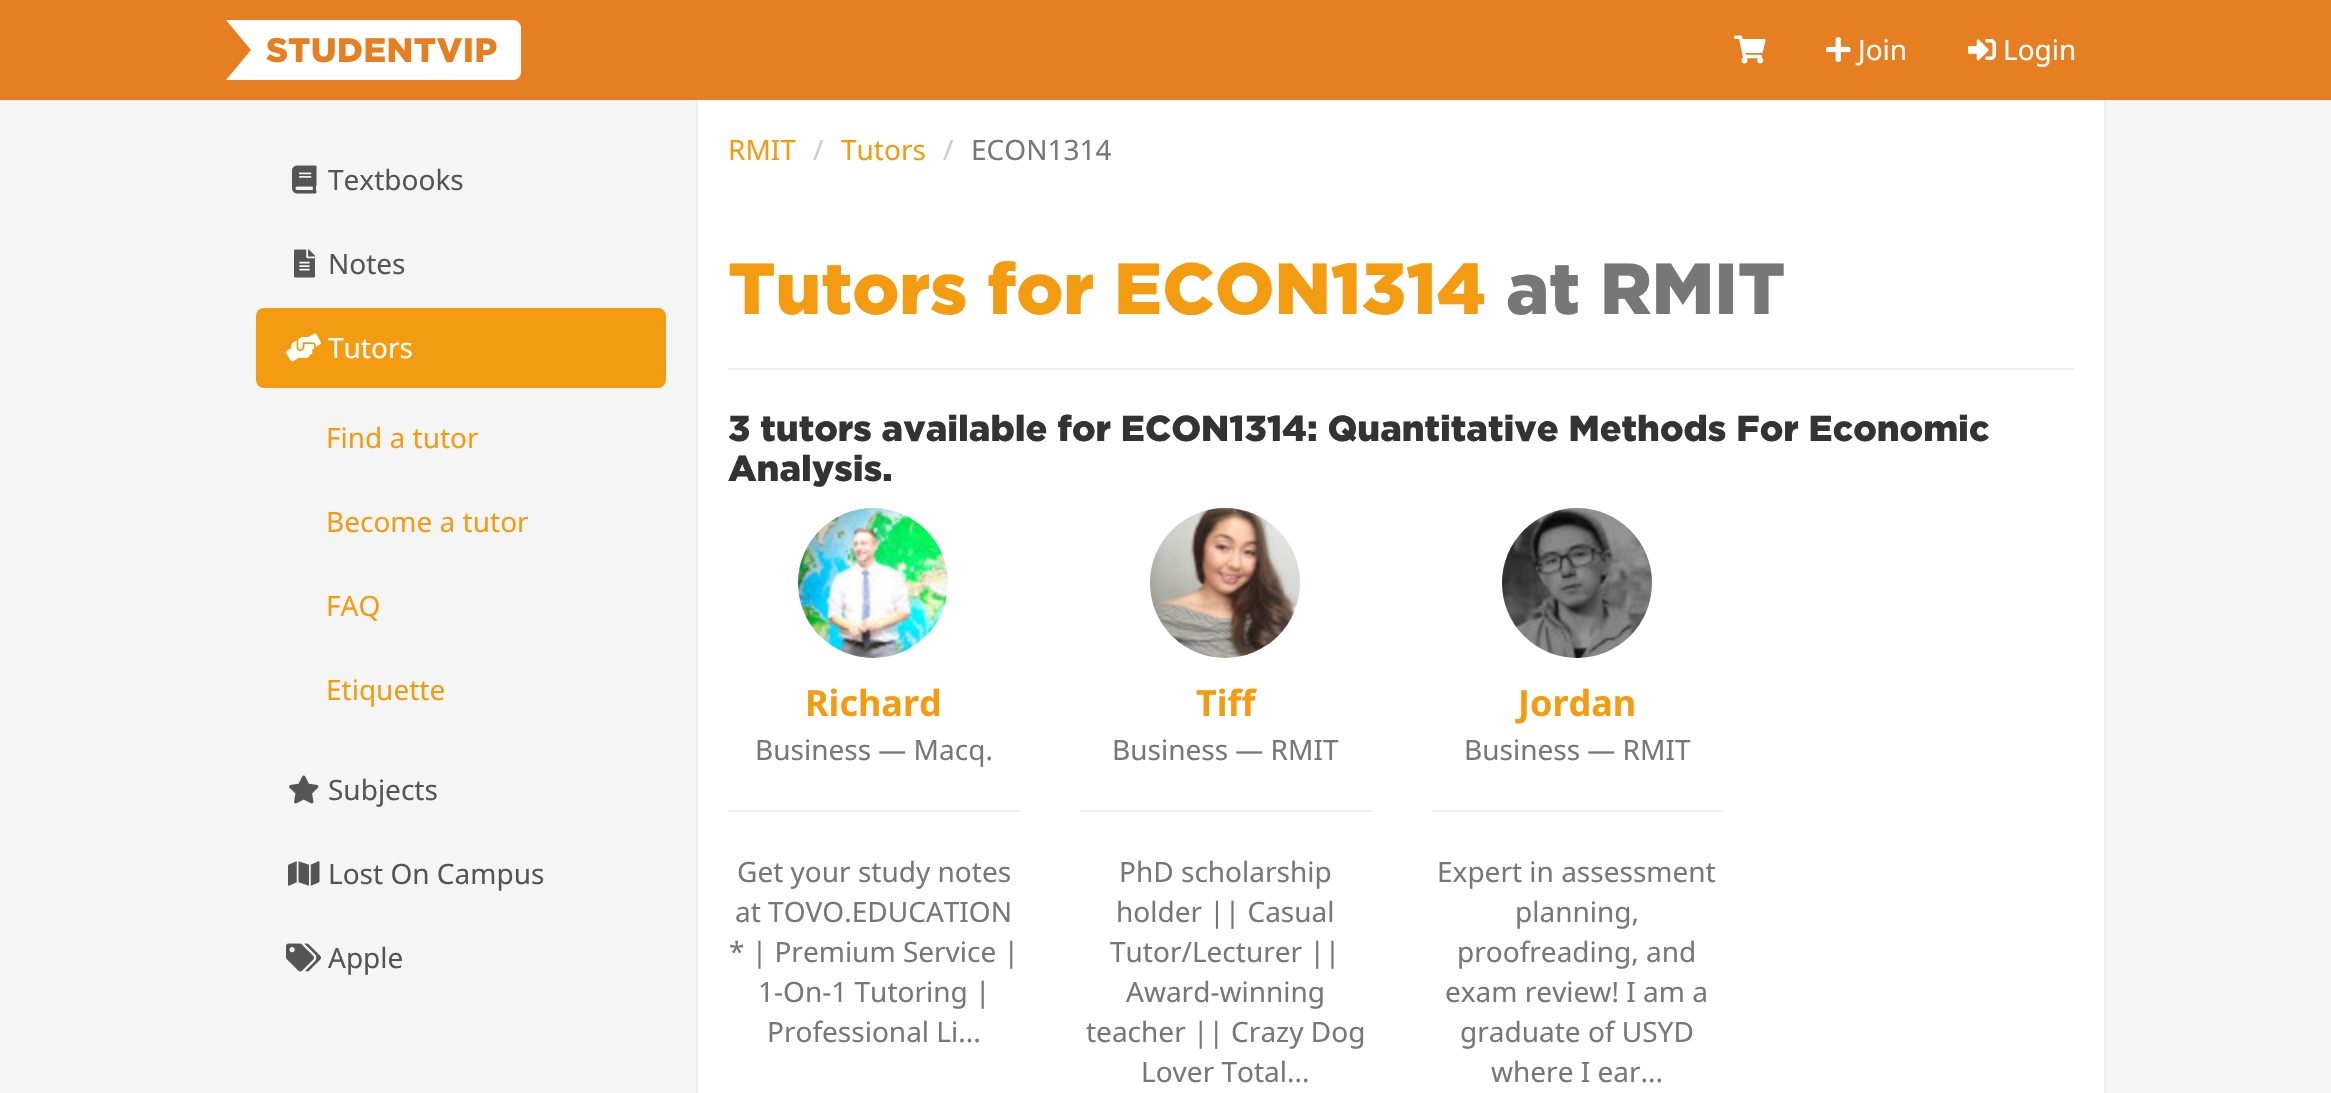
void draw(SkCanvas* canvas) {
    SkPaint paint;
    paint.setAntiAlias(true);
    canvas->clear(0xFFF5F5F5);
    paint.setColor(0xFFE67E22);
    canvas->drawRect(SkRect::MakeXYWH(0, 0, 2331, 100), paint);
    canvas->drawImageRect(SkImages::DeferredFromEncodedData(SkData::MakeFromFileName("img1.png")), SkRect::MakeXYWH(226, 20, 295, 60), SkSamplingOptions());
    canvas->drawImageRect(SkImages::DeferredFromEncodedData(SkData::MakeFromFileName("img2.png")), SkRect::MakeXYWH(1734, 35, 32, 29), SkSamplingOptions());
    canvas->drawImageRect(SkImages::DeferredFromEncodedData(SkData::MakeFromFileName("img3.png")), SkRect::MakeXYWH(1826, 37, 25, 25), SkSamplingOptions());
    SkFont font1(fontMgr->matchFamilyStyle("Noto Sans", SkFontStyle::Normal()), 28);
    font1.setSubpixel(true);
    paint.setColor(0xFFFFFFFF);
    canvas->drawString("Join", 1858, 60, font1, paint);
    canvas->drawImageRect(SkImages::DeferredFromEncodedData(SkData::MakeFromFileName("img4.png")), SkRect::MakeXYWH(1968, 39, 28, 22), SkSamplingOptions());
    canvas->drawString("Login", 2003, 60, font1, paint);
    canvas->drawImageRect(SkImages::DeferredFromEncodedData(SkData::MakeFromFileName("img5.png")), SkRect::MakeXYWH(292, 165, 25, 29), SkSamplingOptions());
    paint.setColor(0xFF555555);
    canvas->drawString("Textbooks", 328, 190, font1, paint);
    canvas->drawImageRect(SkImages::DeferredFromEncodedData(SkData::MakeFromFileName("img6.png")), SkRect::MakeXYWH(294, 249, 21, 29), SkSamplingOptions());
    canvas->drawString("Notes", 328, 274, font1, paint);
    paint.setColor(0xFFF39C12);
    canvas->drawRoundRect(SkRect::MakeXYWH(256, 308, 410, 80), 8, 8, paint);
    canvas->drawImageRect(SkImages::DeferredFromEncodedData(SkData::MakeFromFileName("img7.png")), SkRect::MakeXYWH(286, 333, 35, 29), SkSamplingOptions());
    paint.setColor(0xFFFFFFFF);
    canvas->drawString("Tutors", 328, 358, font1, paint);
    paint.setColor(0xFFF39C12);
    canvas->drawString("Find a tutor", 326, 448, font1, paint);
    canvas->drawString("Become a tutor", 326, 532, font1, paint);
    canvas->drawString("FAQ", 326, 616, font1, paint);
    canvas->drawString("Etiquette", 326, 700, font1, paint);
    canvas->drawImageRect(SkImages::DeferredFromEncodedData(SkData::MakeFromFileName("img8.png")), SkRect::MakeXYWH(289, 775, 30, 29), SkSamplingOptions());
    paint.setColor(0xFF555555);
    canvas->drawString("Subjects", 328, 800, font1, paint);
    canvas->drawImageRect(SkImages::DeferredFromEncodedData(SkData::MakeFromFileName("img9.png")), SkRect::MakeXYWH(288, 861, 32, 25), SkSamplingOptions());
    canvas->drawString("Lost On Campus", 328, 884, font1, paint);
    canvas->drawImageRect(SkImages::DeferredFromEncodedData(SkData::MakeFromFileName("img10.png")), SkRect::MakeXYWH(286, 943, 35, 29), SkSamplingOptions());
    canvas->drawString("Apple", 328, 968, font1, paint);
    paint.setColor(0xFFFFFFFF);
    canvas->drawRect(SkRect::MakeXYWH(698, 100, 1406, 993), paint);
    paint.setColor(0xFFEEEEEE);
    canvas->drawRect(SkRect::MakeXYWH(2104, 100, 2, 993), paint);
    canvas->drawRect(SkRect::MakeXYWH(696, 100, 2, 993), paint);
    paint.setColor(0xFFF39C12);
    canvas->drawString("RMIT", 728, 160, font1, paint);
    paint.setColor(0xFFCCCCCC);
    canvas->drawString("/", 813, 160, font1, paint);
    paint.setColor(0xFFF39C12);
    canvas->drawString("Tutors", 841, 160, font1, paint);
    paint.setColor(0xFFCCCCCC);
    canvas->drawString("/", 943, 160, font1, paint);
    paint.setColor(0xFF777777);
    canvas->drawString("ECON1314", 971, 160, font1, paint);
    paint.setColor(0xFFEEEEEE);
    canvas->drawRect(SkRect::MakeXYWH(728, 368, 1346, 2), paint);
    SkFont font2(fontMgr->matchFamilyStyle("Gotham", SkFontStyle(900, SkFontStyle::kNormal_Width, SkFontStyle::kUpright_Slant)), 72);
    font2.setSubpixel(true);
    paint.setColor(0xFFF39C12);
    canvas->drawString("Tutors for ECON1314", 728, 314, font2, paint);
    paint.setColor(0xFF777777);
    canvas->drawString("at RMIT", 1506, 314, font2, paint);
    SkFont font3(fontMgr->matchFamilyStyle("Gotham", SkFontStyle(900, SkFontStyle::kNormal_Width, SkFontStyle::kUpright_Slant)), 36);
    font3.setSubpixel(true);
    paint.setColor(0xFF333333);
    canvas->drawString("3 tutors available for ECON1314: Quantitative Methods For Economic", 728, 441, font3, paint);
    canvas->drawString("Analysis.", 728, 481, font3, paint);
    canvas->drawImageRect(SkImages::DeferredFromEncodedData(SkData::MakeFromFileName("img11.png")), SkRect::MakeXYWH(798, 508, 150, 150), SkSamplingOptions());
    SkFont font4(fontMgr->matchFamilyStyle("Noto Sans", SkFontStyle::Bold()), 36);
    font4.setSubpixel(true);
    paint.setColor(0xFFF39C12);
    canvas->drawString("Richard", 805, 716, font4, paint);
    paint.setColor(0xFF777777);
    canvas->drawString("Business — Macq.", 755, 760, font1, paint);
    paint.setColor(0xFFEEEEEE);
    canvas->drawRect(SkRect::MakeXYWH(728, 810, 292, 2), paint);
    paint.setColor(0xFF777777);
    canvas->drawString("Get your study notes", 737, 882, font1, paint);
    canvas->drawString("at TOVO.EDUCATION", 735, 922, font1, paint);
    canvas->drawString("* | Premium Service |", 729, 962, font1, paint);
    canvas->drawString("1-On-1 Tutoring |", 758, 1002, font1, paint);
    canvas->drawString("Professional Li...", 767, 1042, font1, paint);
    canvas->drawImageRect(SkImages::DeferredFromEncodedData(SkData::MakeFromFileName("img12.png")), SkRect::MakeXYWH(1150, 508, 150, 150), SkSamplingOptions());
    paint.setColor(0xFFF39C12);
    canvas->drawString("Tiff", 1196, 716, font4, paint);
    paint.setColor(0xFF777777);
    canvas->drawString("Business — RMIT", 1112, 760, font1, paint);
    paint.setColor(0xFFEEEEEE);
    canvas->drawRect(SkRect::MakeXYWH(1080, 810, 292, 2), paint);
    paint.setColor(0xFF777777);
    canvas->drawString("PhD scholarship", 1119, 882, font1, paint);
    canvas->drawString("holder || Casual", 1116, 922, font1, paint);
    canvas->drawString("Tutor/Lecturer ||", 1110, 962, font1, paint);
    canvas->drawString("Award-winning", 1126, 1002, font1, paint);
    canvas->drawString("teacher || Crazy Dog", 1086, 1042, font1, paint);
    canvas->drawString("Lover Total...", 1141, 1082, font1, paint);
    canvas->drawImageRect(SkImages::DeferredFromEncodedData(SkData::MakeFromFileName("img13.png")), SkRect::MakeXYWH(1502, 508, 150, 150), SkSamplingOptions());
    paint.setColor(0xFFF39C12);
    canvas->drawString("Jordan", 1518, 716, font4, paint);
    paint.setColor(0xFF777777);
    canvas->drawString("Business — RMIT", 1464, 760, font1, paint);
    paint.setColor(0xFFEEEEEE);
    canvas->drawRect(SkRect::MakeXYWH(1432, 810, 290, 2), paint);
    paint.setColor(0xFF777777);
    canvas->drawString("Expert in assessment", 1437, 882, font1, paint);
    canvas->drawString("planning,", 1515, 922, font1, paint);
    canvas->drawString("proofreading, and", 1457, 962, font1, paint);
    canvas->drawString("exam review! I am a", 1445, 1002, font1, paint);
    canvas->drawString("graduate of USYD", 1460, 1042, font1, paint);
    canvas->drawString("where I ear...", 1491, 1082, font1, paint);
}
